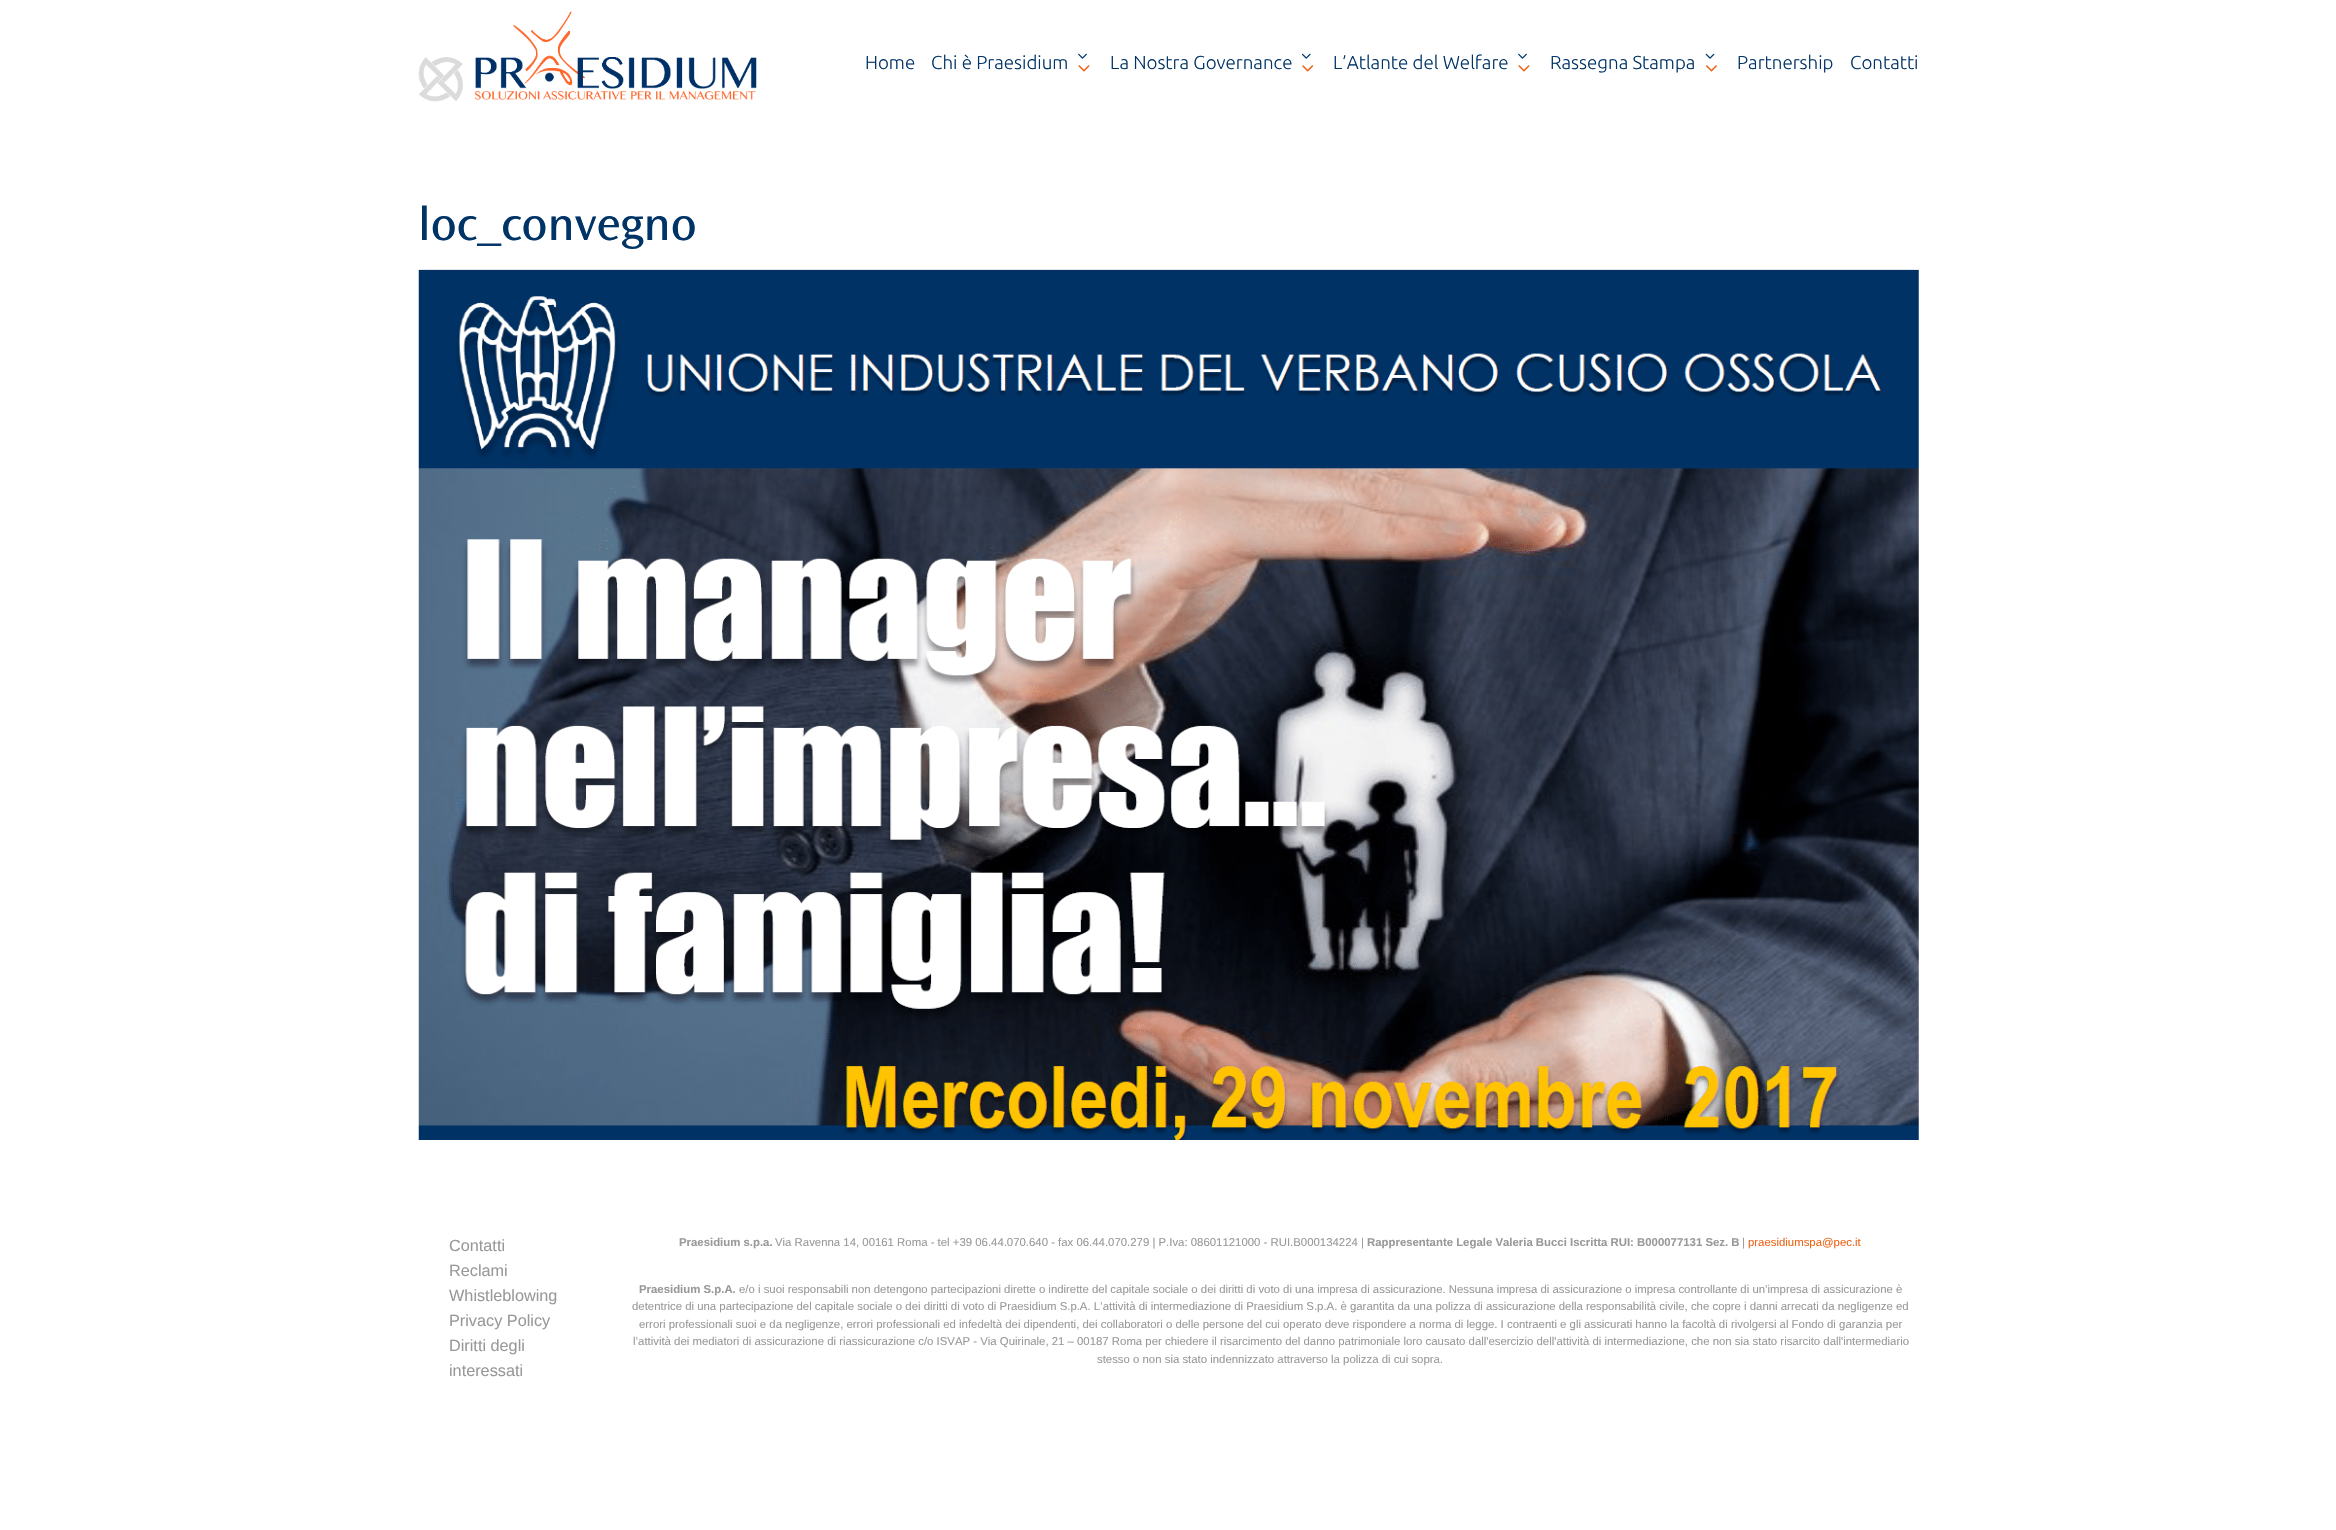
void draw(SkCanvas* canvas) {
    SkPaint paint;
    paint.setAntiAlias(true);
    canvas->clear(0xFFFFFFFF);
    canvas->drawImageRect(SkImages::DeferredFromEncodedData(SkData::MakeFromFileName("img1.png")), SkRect::MakeXYWH(418, 11, 339, 91), SkSamplingOptions());
    SkFont font1(fontMgr->matchFamilyStyle("Ubuntu", SkFontStyle(300, SkFontStyle::kNormal_Width, SkFontStyle::kUpright_Slant)), 18.75f);
    font1.setSubpixel(true);
    paint.setColor(0xFF003366);
    canvas->drawString("Home", 865, 69, font1, paint);
    canvas->drawString("Chi è Praesidium", 931, 69, font1, paint);
    canvas->drawImageRect(SkImages::DeferredFromEncodedData(SkData::MakeFromFileName("img2.png")), SkRect::MakeXYWH(1078, 53, 9, 6), SkSamplingOptions());
    canvas->drawImageRect(SkImages::DeferredFromEncodedData(SkData::MakeFromFileName("img3.png")), SkRect::MakeXYWH(1078, 65, 12, 7), SkSamplingOptions());
    canvas->drawString("La Nostra Governance", 1110, 69, font1, paint);
    canvas->drawImageRect(SkImages::DeferredFromEncodedData(SkData::MakeFromFileName("img4.png")), SkRect::MakeXYWH(1301, 53, 10, 6), SkSamplingOptions());
    canvas->drawImageRect(SkImages::DeferredFromEncodedData(SkData::MakeFromFileName("img5.png")), SkRect::MakeXYWH(1302, 65, 12, 7), SkSamplingOptions());
    canvas->drawString("L’Atlante del Welfare", 1333, 69, font1, paint);
    canvas->drawImageRect(SkImages::DeferredFromEncodedData(SkData::MakeFromFileName("img2.png")), SkRect::MakeXYWH(1518, 53, 9, 6), SkSamplingOptions());
    canvas->drawImageRect(SkImages::DeferredFromEncodedData(SkData::MakeFromFileName("img3.png")), SkRect::MakeXYWH(1518, 65, 12, 7), SkSamplingOptions());
    canvas->drawString("Rassegna Stampa", 1550, 69, font1, paint);
    canvas->drawImageRect(SkImages::DeferredFromEncodedData(SkData::MakeFromFileName("img6.png")), SkRect::MakeXYWH(1705, 53, 10, 6), SkSamplingOptions());
    canvas->drawImageRect(SkImages::DeferredFromEncodedData(SkData::MakeFromFileName("img7.png")), SkRect::MakeXYWH(1705, 65, 12, 7), SkSamplingOptions());
    canvas->drawString("Partnership", 1737, 69, font1, paint);
    canvas->drawString("Contatti", 1850, 69, font1, paint);
    SkFont font2(fontMgr->matchFamilyStyle("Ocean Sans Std", SkFontStyle::Normal()), 47.5f);
    font2.setSubpixel(true);
    canvas->drawString("loc_convegno", 418, 240, font2, paint);
    paint.setColor(0xFFE6E6E6);
    canvas->drawRect(SkRect::MakeXYWH(419, 269, 1500, 1), paint);
    canvas->drawImageRect(SkImages::DeferredFromEncodedData(SkData::MakeFromFileName("img8.png")), SkRect::MakeXYWH(418, 270, 1501, 870), SkSamplingOptions());
    SkFont font3(fontMgr->matchFamilyStyle("Liberation Sans", SkFontStyle::Normal()), 16.25f);
    font3.setSubpixel(true);
    paint.setColor(0xFF999999);
    canvas->drawString("Contatti", 449, 1251, font3, paint);
    canvas->drawString("Reclami", 449, 1276, font3, paint);
    canvas->drawString("Whistleblowing", 449, 1301, font3, paint);
    canvas->drawString("Privacy Policy", 449, 1326, font3, paint);
    canvas->drawString("Diritti degli", 449, 1351, font3, paint);
    canvas->drawString("interessati", 449, 1376, font3, paint);
    SkFont font4(fontMgr->matchFamilyStyle("Liberation Sans", SkFontStyle::Bold()), 11.38f);
    font4.setSubpixel(true);
    canvas->drawString("Praesidium s.p.a.", 679, 1246, font4, paint);
    SkFont font5(fontMgr->matchFamilyStyle("Liberation Sans", SkFontStyle::Normal()), 11.38f);
    font5.setSubpixel(true);
    canvas->drawString("Via Ravenna 14, 00161 Roma - tel +39 06.44.070.640 - fax 06.44.070.279 | P.Iva: 08601121000 - RUI.B000134224 |", 775, 1246, font5, paint);
    canvas->drawString("Rappresentante Legale Valeria Bucci Iscritta RUI: B000077131 Sez. B", 1367, 1246, font4, paint);
    canvas->drawString("|", 1742, 1246, font5, paint);
    paint.setColor(0xFFEC6417);
    canvas->drawString("praesidiumspa@pec.it", 1748, 1246, font5, paint);
    paint.setColor(0xFF999999);
    canvas->drawString("Praesidium S.p.A.", 639, 1293, font4, paint);
    canvas->drawString("e/o i suoi responsabili non detengono partecipazioni dirette o indirette del capitale sociale o dei diritti di voto di una impresa di assicurazione. Nessuna impresa di assicurazione o impresa controllante di un’impresa di assicurazione è", 739, 1293, font5, paint);
    canvas->drawString("detentrice di una partecipazione del capitale sociale o dei diritti di voto di Praesidium S.p.A. L’attività di intermediazione di Praesidium S.p.A. è garantita da una polizza di assicurazione della responsabilità civile, che copre i danni arrecati da negligenze ed", 632, 1310, font5, paint);
    canvas->drawString("errori professionali suoi e da negligenze, errori professionali ed infedeltà dei dipendenti, dei collaboratori o delle persone del cui operato deve rispondere a norma di legge. I contraenti e gli assicurati hanno la facoltà di rivolgersi al Fondo di garanzia per", 639, 1328, font5, paint);
    canvas->drawString("l’attività dei mediatori di assicurazione di riassicurazione c/o ISVAP - Via Quirinale, 21 – 00187 Roma per chiedere il risarcimento del danno patrimoniale loro causato dall'esercizio dell'attività di intermediazione, che non sia stato risarcito dall'intermediario", 633, 1345, font5, paint);
    canvas->drawString("stesso o non sia stato indennizzato attraverso la polizza di cui sopra.", 1097, 1363, font5, paint);
}
